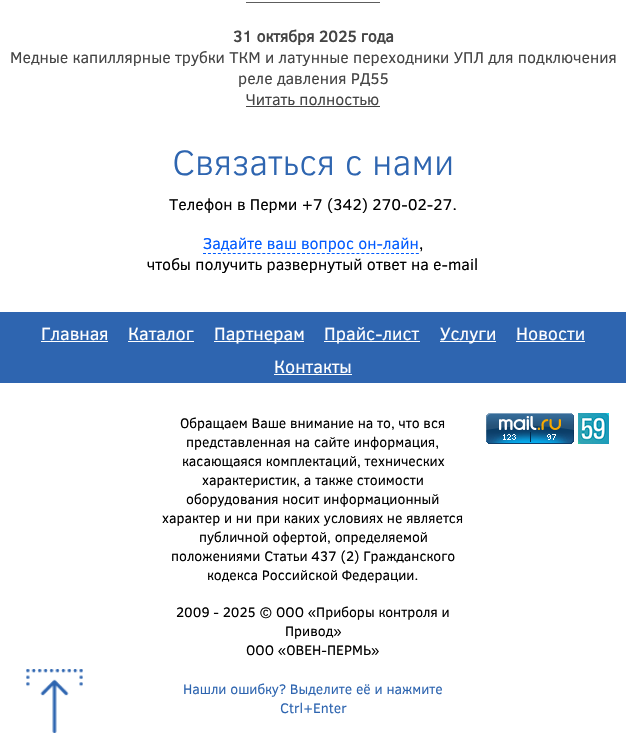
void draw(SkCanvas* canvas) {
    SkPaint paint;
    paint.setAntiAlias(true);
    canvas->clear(0xFFFFFFFF);
    paint.setColor(0xFF5D5D5D);
    canvas->drawRect(SkRect::MakeXYWH(246, 2, 134, 1), paint);
    SkFont font1(fontMgr->matchFamilyStyle("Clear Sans", SkFontStyle::Bold()), 16);
    font1.setSubpixel(true);
    paint.setColor(0xFF444444);
    canvas->drawString("31 октября 2025 года", 233, 42, font1, paint);
    SkFont font2(fontMgr->matchFamilyStyle("Clear Sans", SkFontStyle::Normal()), 16);
    font2.setSubpixel(true);
    canvas->drawString("Медные капиллярные трубки ТКМ и латунные переходники УПЛ для подключения", 10, 63, font2, paint);
    canvas->drawString("реле давления РД55", 238, 84, font2, paint);
    canvas->drawString("Читать полностью", 246, 105, font2, paint);
    canvas->drawRect(SkRect::MakeXYWH(246, 106, 134, 1), paint);
    SkFont font3(fontMgr->matchFamilyStyle("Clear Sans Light", SkFontStyle(300, SkFontStyle::kNormal_Width, SkFontStyle::kUpright_Slant)), 36);
    font3.setSubpixel(true);
    paint.setColor(0xFF2E65B0);
    canvas->drawString("Связаться с нами", 172, 175, font3, paint);
    paint.setColor(0xFF000000);
    canvas->drawString("Телефон в Перми +7 (342) 270-02-27.", 169, 210, font2, paint);
    paint.setColor(0xFF005AFF);
    canvas->drawString("Задайте ваш вопрос он-лайн", 203, 249, font2, paint);
    paint.setStyle(SkPaint::kStroke_Style);
    paint.setStrokeWidth(1);
    paint.setPathEffect(SkDashPathEffect::Make({{3, 1.95f}}, 0));
    canvas->drawPath(SkPathBuilder().moveTo(203, 253.5f).lineTo(419, 253.5f).detach(), paint);
    paint.setPathEffect(nullptr);
    paint.setStyle(SkPaint::kFill_Style);
    paint.setColor(0xFF000000);
    canvas->drawString(",", 419, 249, font2, paint);
    canvas->drawString("чтобы получить развернутый ответ на e-mail", 147, 270, font2, paint);
    paint.setColor(0xFF2E65B0);
    canvas->drawRect(SkRect::MakeXYWH(0, 312, 626, 71), paint);
    SkFont font4(fontMgr->matchFamilyStyle("Clear Sans", SkFontStyle::Normal()), 18);
    font4.setSubpixel(true);
    paint.setColor(0xFFFFFFFF);
    canvas->drawString("Главная", 41, 340, font4, paint);
    canvas->drawRect(SkRect::MakeXYWH(41, 341, 67, 1), paint);
    canvas->drawString("Каталог", 128, 340, font4, paint);
    canvas->drawRect(SkRect::MakeXYWH(128, 341, 66, 1), paint);
    canvas->drawRect(SkRect::MakeXYWH(214, 341, 90, 1), paint);
    canvas->drawString("Партнерам", 214, 340, font4, paint);
    canvas->drawRect(SkRect::MakeXYWH(324, 341, 96, 1), paint);
    canvas->drawString("Прайс-лист", 324, 340, font4, paint);
    canvas->drawRect(SkRect::MakeXYWH(440, 341, 56, 1), paint);
    canvas->drawString("Услуги", 440, 340, font4, paint);
    canvas->drawString("Новости", 516, 340, font4, paint);
    canvas->drawRect(SkRect::MakeXYWH(516, 341, 69, 1), paint);
    canvas->drawString("Контакты", 274, 373, font4, paint);
    canvas->drawRect(SkRect::MakeXYWH(274, 374, 78, 1), paint);
    canvas->drawImageRect(SkImages::DeferredFromEncodedData(SkData::MakeFromFileName("img1.png")), SkRect::MakeXYWH(26, 669, 57, 64), SkSamplingOptions());
    SkFont font5(fontMgr->matchFamilyStyle("Clear Sans", SkFontStyle::Normal()), 14);
    font5.setSubpixel(true);
    paint.setColor(0xFF000000);
    canvas->drawString("Обращаем Ваше внимание на то, что вся", 180, 428, font5, paint);
    canvas->drawString("представленная на сайте информация,", 186, 447, font5, paint);
    canvas->drawString("касающаяся комплектаций, технических", 182, 466, font5, paint);
    canvas->drawString("характеристик, а также стоимости", 202, 485, font5, paint);
    canvas->drawString("оборудования носит информационный", 186, 504, font5, paint);
    canvas->drawString("характер и ни при каких условиях не является", 162, 523, font5, paint);
    canvas->drawString("публичной офертой, определяемой", 199, 542, font5, paint);
    canvas->drawString("положениями Статьи 437 (2) Гражданского", 171, 561, font5, paint);
    canvas->drawString("кодекса Российской Федерации.", 207, 580, font5, paint);
    canvas->drawString("2009 - 2025 © ООО «Приборы контроля и", 176, 617, font5, paint);
    canvas->drawString("Привод»", 285, 636, font5, paint);
    canvas->drawString("ООО «ОВЕН-ПЕРМЬ»", 246, 655, font5, paint);
    paint.setColor(0xFF2E65B0);
    canvas->drawString("Нашли ошибку? Выделите её и нажмите", 183, 694, font5, paint);
    canvas->drawString("Ctrl+Enter", 280, 713, font5, paint);
    canvas->drawImageRect(SkImages::DeferredFromEncodedData(SkData::MakeFromFileName("img2.png")), SkRect::MakeXYWH(486, 413, 88, 31), SkSamplingOptions());
    canvas->drawImageRect(SkImages::DeferredFromEncodedData(SkData::MakeFromFileName("img3.png")), SkRect::MakeXYWH(578, 413, 31, 31), SkSamplingOptions());
}
